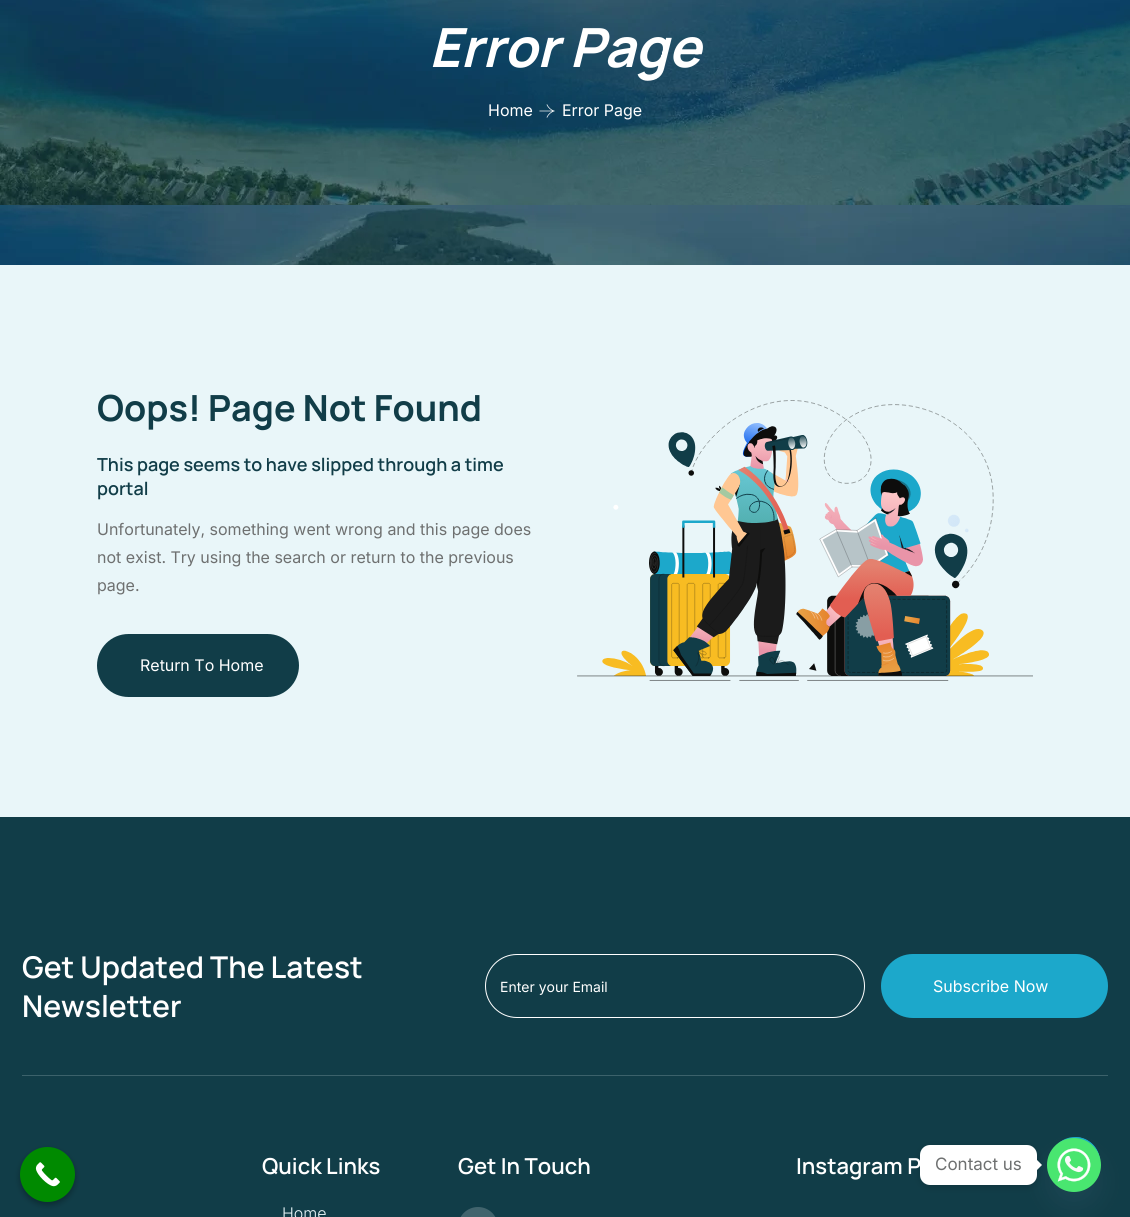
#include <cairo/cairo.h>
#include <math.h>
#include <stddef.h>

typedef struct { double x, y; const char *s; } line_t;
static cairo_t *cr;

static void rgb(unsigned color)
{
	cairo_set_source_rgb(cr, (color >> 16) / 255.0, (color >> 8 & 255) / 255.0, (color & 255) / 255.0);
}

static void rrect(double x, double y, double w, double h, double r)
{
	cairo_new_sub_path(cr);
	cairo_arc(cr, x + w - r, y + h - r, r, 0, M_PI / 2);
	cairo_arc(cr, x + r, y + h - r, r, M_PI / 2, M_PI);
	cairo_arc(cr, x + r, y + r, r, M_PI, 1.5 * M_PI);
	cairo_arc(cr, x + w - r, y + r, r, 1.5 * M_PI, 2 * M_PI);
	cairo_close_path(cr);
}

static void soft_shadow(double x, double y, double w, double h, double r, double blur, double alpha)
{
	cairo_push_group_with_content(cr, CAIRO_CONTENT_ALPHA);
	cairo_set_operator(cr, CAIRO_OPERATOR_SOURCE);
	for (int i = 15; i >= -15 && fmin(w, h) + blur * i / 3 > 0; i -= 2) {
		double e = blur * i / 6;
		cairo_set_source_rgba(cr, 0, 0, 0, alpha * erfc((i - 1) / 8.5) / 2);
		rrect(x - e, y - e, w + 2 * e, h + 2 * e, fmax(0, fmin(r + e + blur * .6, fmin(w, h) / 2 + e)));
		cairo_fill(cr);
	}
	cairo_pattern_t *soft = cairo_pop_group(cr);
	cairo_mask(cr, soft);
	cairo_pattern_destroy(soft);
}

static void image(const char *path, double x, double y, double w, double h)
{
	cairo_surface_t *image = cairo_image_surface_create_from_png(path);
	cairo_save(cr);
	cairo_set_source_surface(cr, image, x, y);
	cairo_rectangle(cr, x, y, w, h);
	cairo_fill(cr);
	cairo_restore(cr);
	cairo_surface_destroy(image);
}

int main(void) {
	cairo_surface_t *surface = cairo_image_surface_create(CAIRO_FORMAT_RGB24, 1130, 1217);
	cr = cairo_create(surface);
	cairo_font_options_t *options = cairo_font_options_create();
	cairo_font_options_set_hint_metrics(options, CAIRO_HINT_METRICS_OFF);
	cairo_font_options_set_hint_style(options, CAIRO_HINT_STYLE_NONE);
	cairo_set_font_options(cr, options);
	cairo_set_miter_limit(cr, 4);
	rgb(0xe9f6f9);
	cairo_paint(cr);
	image("img/1.png", 0, 0, 1130, 265);
	image("img/2.png", 539, 104, 16, 14);
	rgb(0x113d48);
	rrect(97, 634, 202, 63, 31.5);
	cairo_fill(cr);
	image("img/3.png", 577, 400, 456, 281);
	cairo_rectangle(cr, 0, 817, 1130, 400);
	cairo_fill(cr);
	rgb(0x3c626b);
	cairo_rectangle(cr, 22, 1075, 1086, 1);
	cairo_fill(cr);
	rrect(485.5, 954.5, 379, 63, 31.5);
	rgb(0xffffff);
	cairo_set_line_width(cr, 1);
	cairo_stroke(cr);
	rgb(0x1ca8cb);
	rrect(881, 954, 227, 64, 32);
	cairo_fill(cr);
	rgb(0x41646d);
	rrect(458, 1207, 40, 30, 20);
	cairo_fill(cr);
	cairo_save(cr);
	rrect(1050, 1137, 50, 50, 25);
	cairo_clip(cr);
	cairo_new_path(cr);
	cairo_move_to(cr, 1075, 1138);
	cairo_curve_to(cr, 1090.5, 1138, 1102, 1152.5, 1098.5, 1167.5);
	rgb(0x1ca8cb);
	cairo_set_line_width(cr, 9.8);
	cairo_stroke(cr);
	cairo_restore(cr);
	cairo_arc(cr, 1075, 1162, 24, 0, 2 * M_PI);
	rgb(0x1ca8cb);
	cairo_set_line_width(cr, 2);
	cairo_stroke(cr);
	rgb(0x000000);
	soft_shadow(20, 1150, 55, 55, 27.5, 3, 0.3);
	rgb(0x008a00);
	cairo_arc(cr, 47.5, 1174.5, 27.5, 0, 2 * M_PI);
	cairo_fill(cr);
	image("img/4.png", 35, 1162, 25, 25);
	rgb(0x49687e);
	soft_shadow(1047, 1154, 54, 54, 27, 12, 0.16);
	image("img/5.png", 1047, 1138, 54, 54);
	rgb(0x000000);
	soft_shadow(920, 1147, 117, 40, 10, 4, 0.15);
	rgb(0xffffff);
	rrect(920, 1145, 117, 40, 10);
	cairo_fill(cr);
	cairo_new_path(cr);
	cairo_move_to(cr, 1037, 1170);
	cairo_line_to(cr, 1037, 1160);
	cairo_line_to(cr, 1042, 1165);
	cairo_close_path(cr);
	cairo_fill(cr);
	cairo_select_font_face(cr, "Manrope", CAIRO_FONT_SLANT_ITALIC, CAIRO_FONT_WEIGHT_BOLD);
	cairo_set_font_size(cr, 54);
	cairo_move_to(cr, 429, 67);
	cairo_show_text(cr, "Error Page");
	cairo_select_font_face(cr, "Inter", CAIRO_FONT_SLANT_NORMAL, CAIRO_FONT_WEIGHT_NORMAL);
	cairo_set_font_size(cr, 16);
	cairo_move_to(cr, 488, 116);
	cairo_show_text(cr, "Home");
	cairo_move_to(cr, 562, 116);
	cairo_show_text(cr, "Error Page");
	cairo_select_font_face(cr, "Manrope", CAIRO_FONT_SLANT_NORMAL, CAIRO_FONT_WEIGHT_BOLD);
	cairo_set_font_size(cr, 36);
	rgb(0x113d48);
	cairo_move_to(cr, 97, 421);
	cairo_show_text(cr, "Oops! Page Not Found");
	cairo_select_font_face(cr, "Manrope SemiBold", CAIRO_FONT_SLANT_NORMAL, CAIRO_FONT_WEIGHT_NORMAL);
	cairo_set_font_size(cr, 18);
	cairo_move_to(cr, 97, 471);
	cairo_show_text(cr, "This page seems to have slipped through a time");
	cairo_move_to(cr, 97, 495);
	cairo_show_text(cr, "portal");
	cairo_select_font_face(cr, "Inter", CAIRO_FONT_SLANT_NORMAL, CAIRO_FONT_WEIGHT_NORMAL);
	cairo_set_font_size(cr, 16);
	rgb(0x6e7070);
	{
		static const line_t items[] = {
			{97, 535, "Unfortunately, something went wrong and this page does"},
			{97, 563, "not exist. Try using the search or return to the previous"},
			{97, 591, "page."},
		};
		for (size_t i = 0; i < sizeof items / sizeof *items; i++) {
			cairo_move_to(cr, items[i].x, items[i].y);
			cairo_show_text(cr, items[i].s);
		}
	}
	rgb(0xffffff);
	cairo_move_to(cr, 140, 671);
	cairo_show_text(cr, "Return To Home");
	cairo_select_font_face(cr, "Manrope SemiBold", CAIRO_FONT_SLANT_NORMAL, CAIRO_FONT_WEIGHT_NORMAL);
	cairo_set_font_size(cr, 30);
	cairo_move_to(cr, 22, 978);
	cairo_show_text(cr, "Get Updated The Latest");
	cairo_move_to(cr, 22, 1017);
	cairo_show_text(cr, "Newsletter");
	cairo_select_font_face(cr, "Inter", CAIRO_FONT_SLANT_NORMAL, CAIRO_FONT_WEIGHT_NORMAL);
	cairo_set_font_size(cr, 14);
	cairo_move_to(cr, 500, 992);
	cairo_show_text(cr, "Enter your Email");
	cairo_set_font_size(cr, 16);
	cairo_move_to(cr, 933, 992);
	cairo_show_text(cr, "Subscribe Now");
	cairo_select_font_face(cr, "Manrope SemiBold", CAIRO_FONT_SLANT_NORMAL, CAIRO_FONT_WEIGHT_NORMAL);
	cairo_set_font_size(cr, 22);
	cairo_move_to(cr, 262, 1174);
	cairo_show_text(cr, "Quick Links");
	cairo_select_font_face(cr, "Inter Light", CAIRO_FONT_SLANT_NORMAL, CAIRO_FONT_WEIGHT_NORMAL);
	cairo_set_font_size(cr, 16);
	rgb(0xe9f6f9);
	cairo_move_to(cr, 282, 1219);
	cairo_show_text(cr, "Home");
	cairo_select_font_face(cr, "Manrope SemiBold", CAIRO_FONT_SLANT_NORMAL, CAIRO_FONT_WEIGHT_NORMAL);
	cairo_set_font_size(cr, 22);
	rgb(0xffffff);
	cairo_move_to(cr, 458, 1174);
	cairo_show_text(cr, "Get In Touch");
	cairo_move_to(cr, 796, 1174);
	cairo_show_text(cr, "Instagram P");
	cairo_select_font_face(cr, "Inter", CAIRO_FONT_SLANT_NORMAL, CAIRO_FONT_WEIGHT_NORMAL);
	cairo_set_font_size(cr, 17);
	rgb(0x6e7070);
	cairo_move_to(cr, 935, 1170);
	cairo_show_text(cr, "Contact us");
	cairo_surface_write_to_png(surface, "page.png");
	cairo_font_options_destroy(options);
	cairo_destroy(cr);
	cairo_surface_destroy(surface);
	return 0;
}
